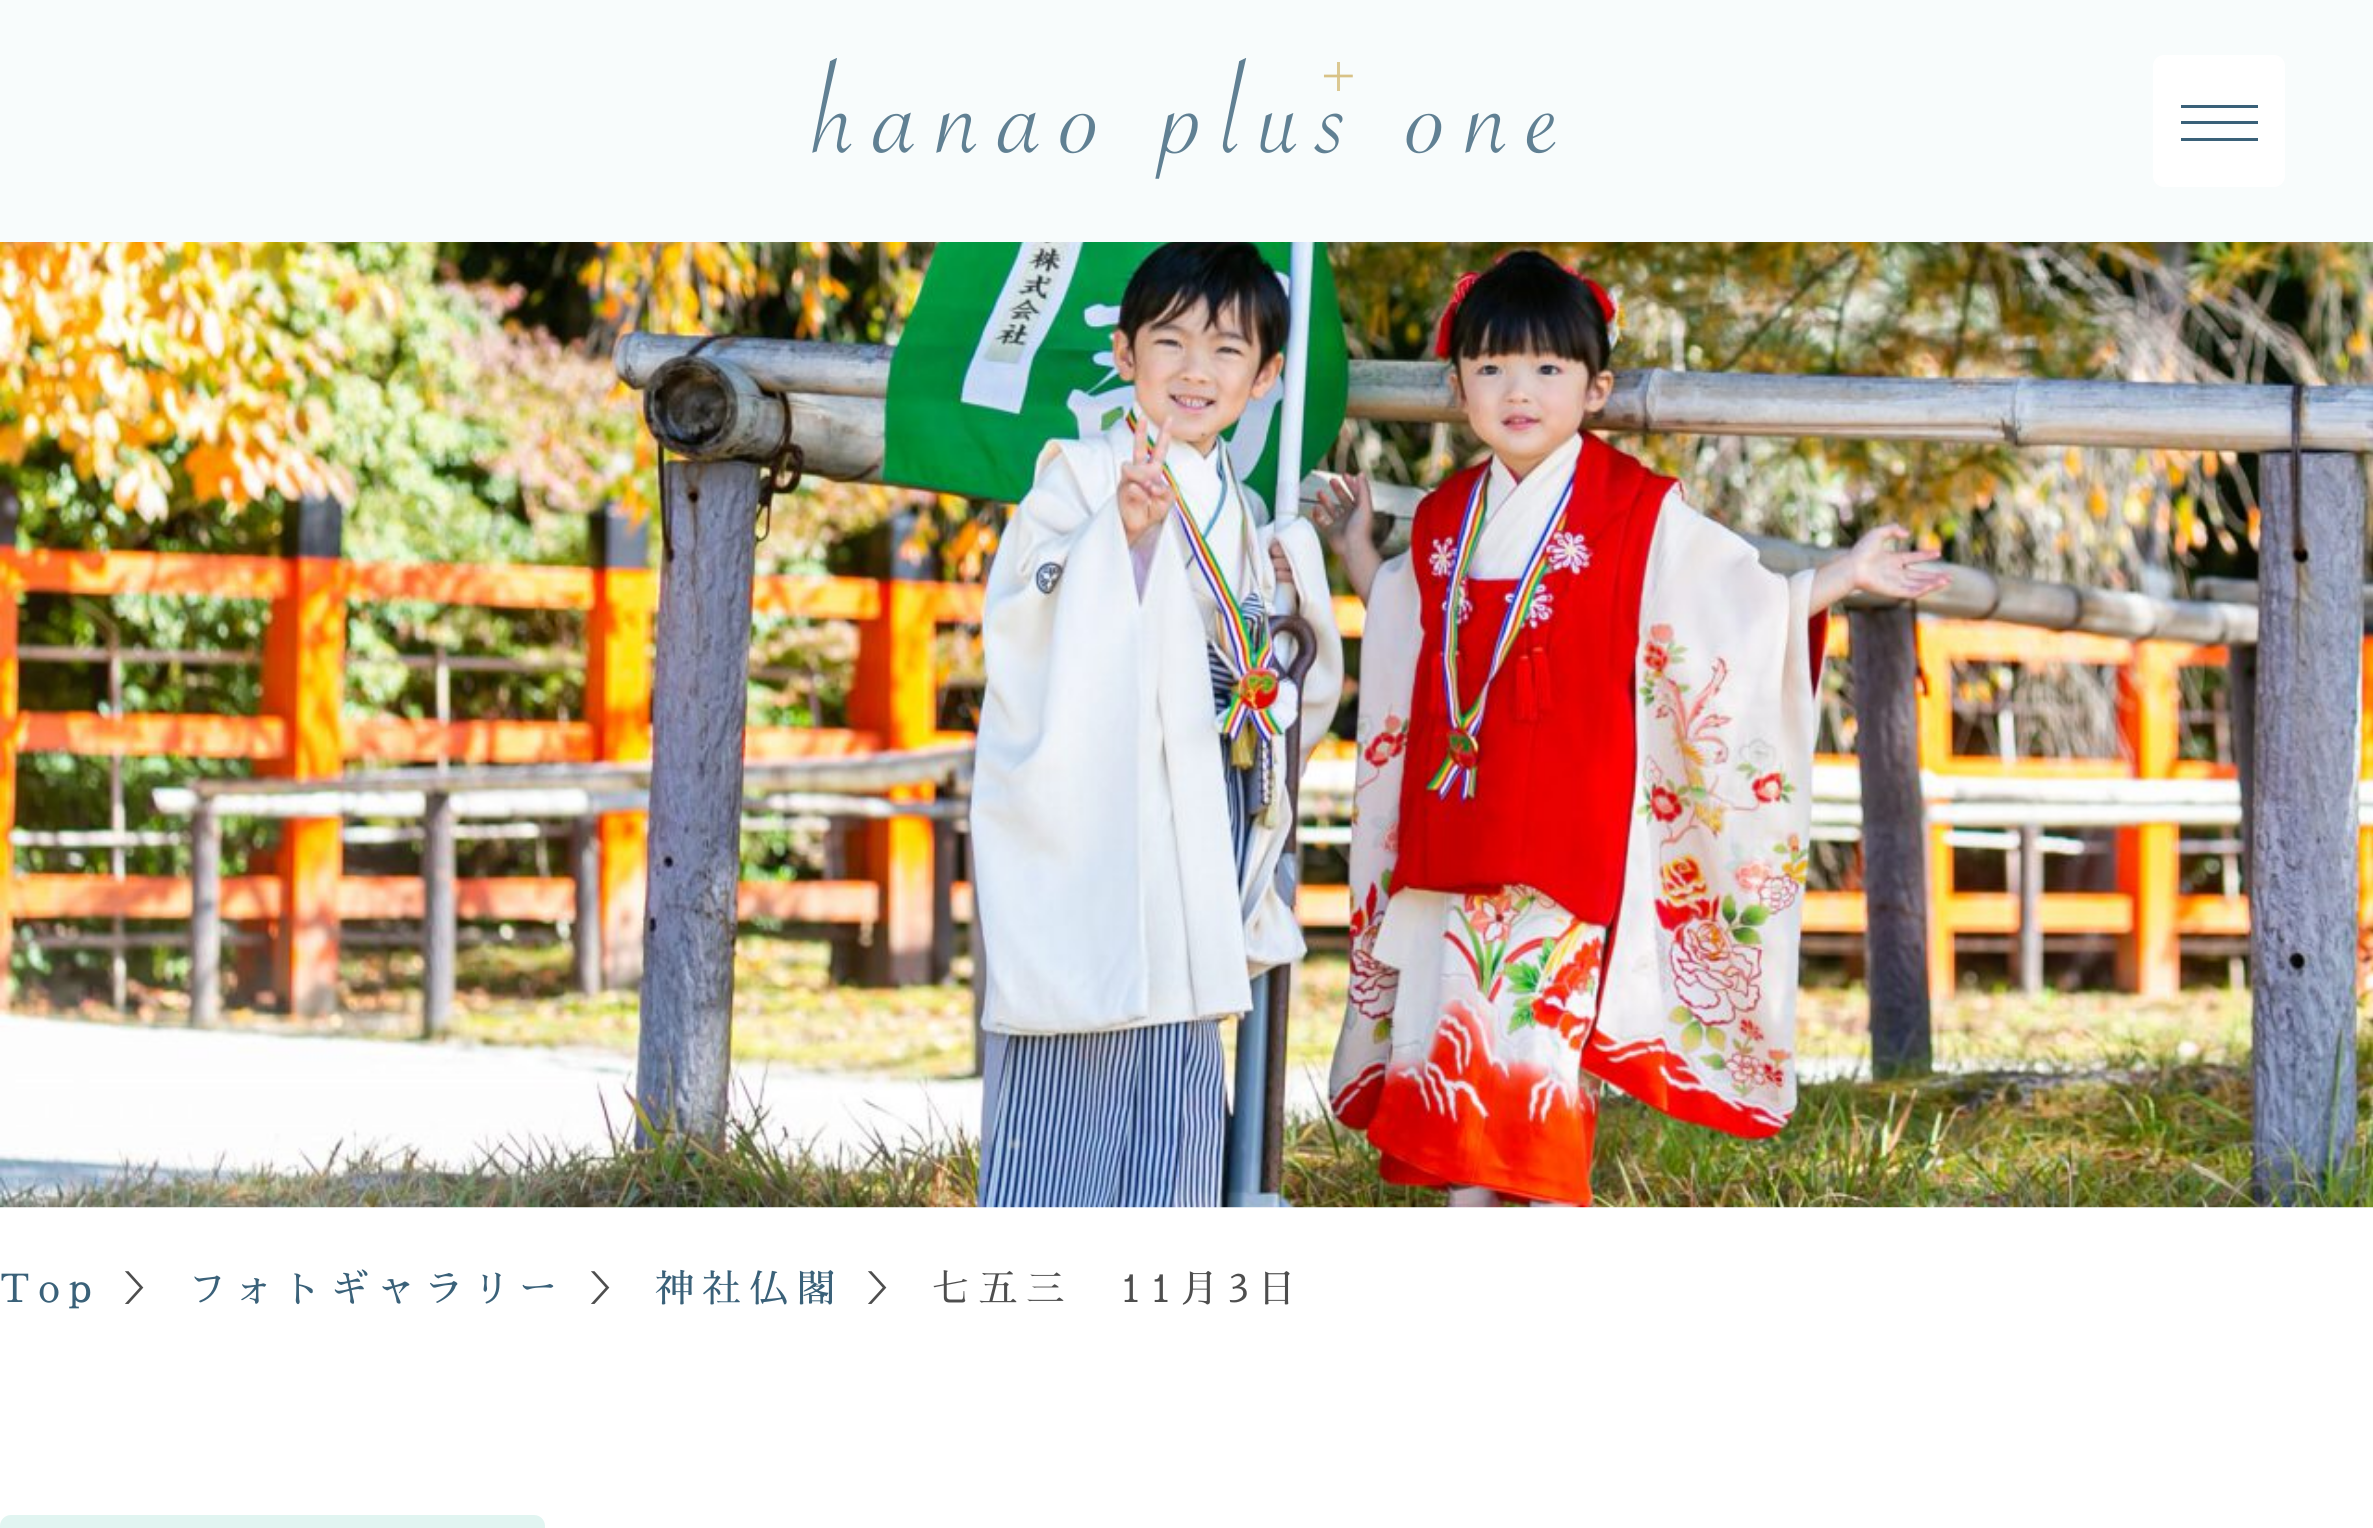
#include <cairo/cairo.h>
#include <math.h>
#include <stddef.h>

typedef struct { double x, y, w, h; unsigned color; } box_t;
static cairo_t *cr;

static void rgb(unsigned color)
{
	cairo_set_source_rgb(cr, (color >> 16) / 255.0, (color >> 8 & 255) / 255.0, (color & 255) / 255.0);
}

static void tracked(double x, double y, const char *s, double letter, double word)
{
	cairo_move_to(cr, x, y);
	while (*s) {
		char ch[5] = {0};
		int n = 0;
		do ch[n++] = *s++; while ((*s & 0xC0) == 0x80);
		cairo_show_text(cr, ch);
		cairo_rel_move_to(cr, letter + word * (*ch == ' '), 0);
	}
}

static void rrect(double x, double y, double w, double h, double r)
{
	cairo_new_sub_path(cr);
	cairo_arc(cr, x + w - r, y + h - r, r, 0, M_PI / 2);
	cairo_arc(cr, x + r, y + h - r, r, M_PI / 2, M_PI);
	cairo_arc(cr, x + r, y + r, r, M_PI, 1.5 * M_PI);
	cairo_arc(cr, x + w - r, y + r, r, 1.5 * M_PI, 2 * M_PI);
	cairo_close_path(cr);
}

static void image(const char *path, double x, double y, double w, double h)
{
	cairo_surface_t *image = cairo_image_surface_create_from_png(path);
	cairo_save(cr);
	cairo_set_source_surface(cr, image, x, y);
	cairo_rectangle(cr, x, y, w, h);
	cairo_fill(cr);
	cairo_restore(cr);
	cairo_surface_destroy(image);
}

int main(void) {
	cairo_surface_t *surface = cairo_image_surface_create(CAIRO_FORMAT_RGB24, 2373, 1528);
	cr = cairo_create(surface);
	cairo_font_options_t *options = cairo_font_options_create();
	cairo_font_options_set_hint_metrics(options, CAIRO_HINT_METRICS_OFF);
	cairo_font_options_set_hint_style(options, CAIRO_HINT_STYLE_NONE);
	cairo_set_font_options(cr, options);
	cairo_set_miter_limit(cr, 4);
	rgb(0xffffff);
	cairo_paint(cr);
	rgb(0xf8fcfc);
	cairo_rectangle(cr, 0, 0, 2373, 242);
	cairo_fill(cr);
	image("img/1.png", 812, 58, 744, 121);
	rgb(0xffffff);
	rrect(2153, 55, 132, 132, 11);
	cairo_fill(cr);
	{
		static const box_t items[] = {
			{2181, 105, 77, 3, 0x3a6179},
			{2181, 121, 77, 3, 0x3a6179},
			{2181, 138, 77, 3, 0x3a6179},
		};
		for (size_t i = 0; i < sizeof items / sizeof *items; i++) {
			rgb(items[i].color);
			cairo_rectangle(cr, items[i].x, items[i].y, items[i].w, items[i].h);
			cairo_fill(cr);
		}
	}
	image("img/2.png", 0, 242, 2373, 966);
	rgb(0xe1f5f1);
	rrect(0, 1515, 545, 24, 11);
	cairo_fill(cr);
	cairo_select_font_face(cr, "Sawarabi Mincho", CAIRO_FONT_SLANT_NORMAL, CAIRO_FONT_WEIGHT_NORMAL);
	cairo_set_font_size(cr, 38.5);
	rgb(0x3a6179);
	tracked(0, 1302, "Top", 8.75, 0);
	rgb(0x4e4e4e);
	tracked(121, 1302, "＞", 8.75, 0);
	rgb(0x3a6179);
	tracked(188, 1302, "フォトギャラリー", 8.75, 0);
	rgb(0x4e4e4e);
	tracked(587, 1302, "＞", 8.75, 0);
	rgb(0x3a6179);
	tracked(655, 1302, "神社仏閣", 8.75, 0);
	rgb(0x4e4e4e);
	tracked(864, 1302, "＞ 七五三　11月3日", 8.75, 0);
	cairo_surface_write_to_png(surface, "page.png");
	cairo_font_options_destroy(options);
	cairo_destroy(cr);
	cairo_surface_destroy(surface);
	return 0;
}
